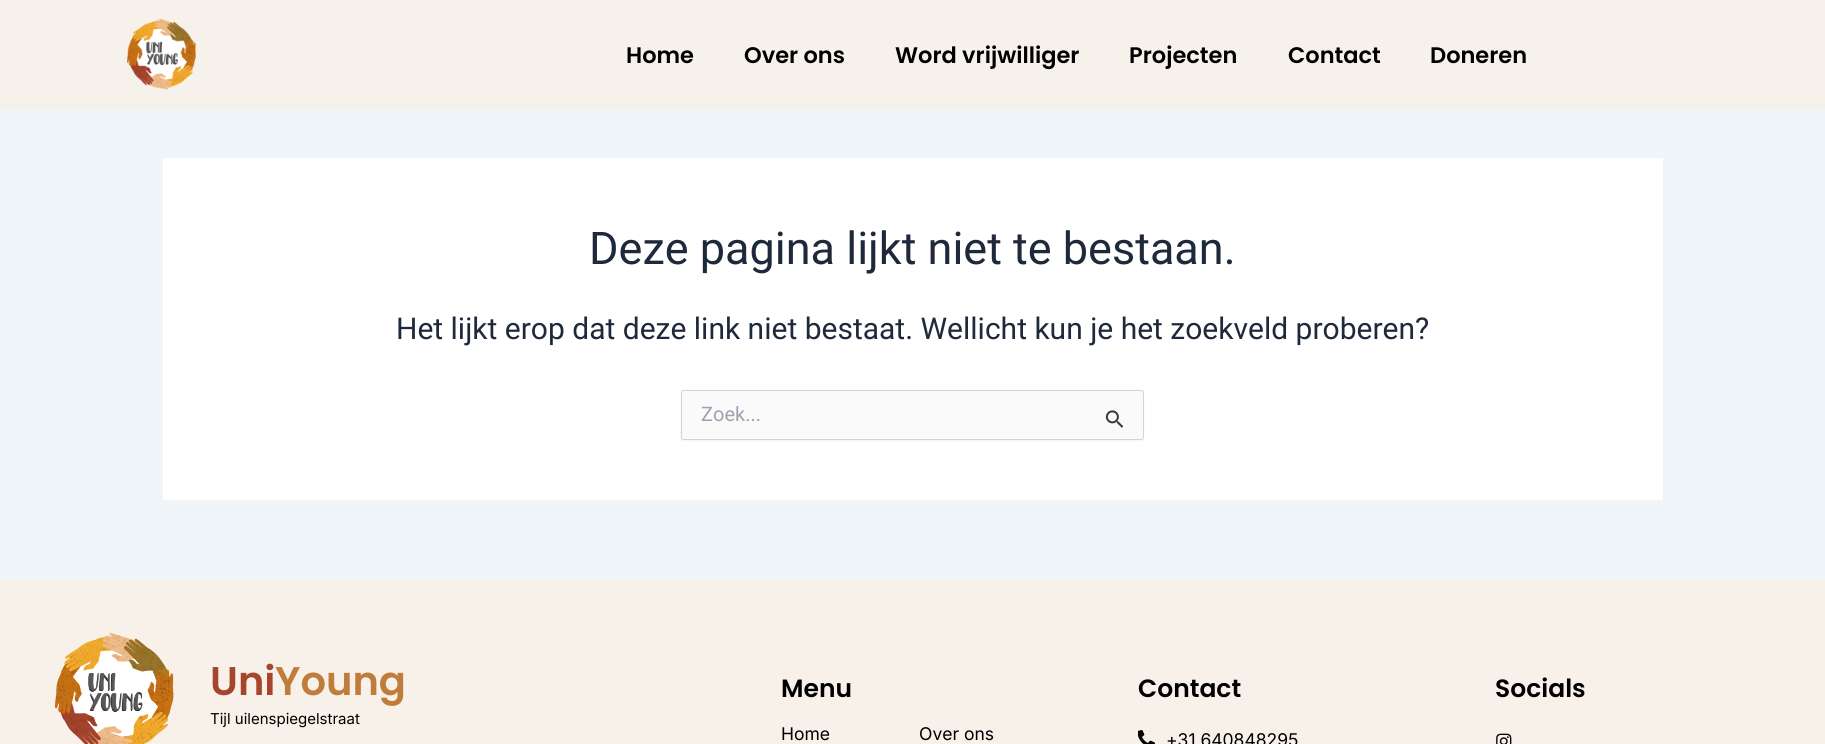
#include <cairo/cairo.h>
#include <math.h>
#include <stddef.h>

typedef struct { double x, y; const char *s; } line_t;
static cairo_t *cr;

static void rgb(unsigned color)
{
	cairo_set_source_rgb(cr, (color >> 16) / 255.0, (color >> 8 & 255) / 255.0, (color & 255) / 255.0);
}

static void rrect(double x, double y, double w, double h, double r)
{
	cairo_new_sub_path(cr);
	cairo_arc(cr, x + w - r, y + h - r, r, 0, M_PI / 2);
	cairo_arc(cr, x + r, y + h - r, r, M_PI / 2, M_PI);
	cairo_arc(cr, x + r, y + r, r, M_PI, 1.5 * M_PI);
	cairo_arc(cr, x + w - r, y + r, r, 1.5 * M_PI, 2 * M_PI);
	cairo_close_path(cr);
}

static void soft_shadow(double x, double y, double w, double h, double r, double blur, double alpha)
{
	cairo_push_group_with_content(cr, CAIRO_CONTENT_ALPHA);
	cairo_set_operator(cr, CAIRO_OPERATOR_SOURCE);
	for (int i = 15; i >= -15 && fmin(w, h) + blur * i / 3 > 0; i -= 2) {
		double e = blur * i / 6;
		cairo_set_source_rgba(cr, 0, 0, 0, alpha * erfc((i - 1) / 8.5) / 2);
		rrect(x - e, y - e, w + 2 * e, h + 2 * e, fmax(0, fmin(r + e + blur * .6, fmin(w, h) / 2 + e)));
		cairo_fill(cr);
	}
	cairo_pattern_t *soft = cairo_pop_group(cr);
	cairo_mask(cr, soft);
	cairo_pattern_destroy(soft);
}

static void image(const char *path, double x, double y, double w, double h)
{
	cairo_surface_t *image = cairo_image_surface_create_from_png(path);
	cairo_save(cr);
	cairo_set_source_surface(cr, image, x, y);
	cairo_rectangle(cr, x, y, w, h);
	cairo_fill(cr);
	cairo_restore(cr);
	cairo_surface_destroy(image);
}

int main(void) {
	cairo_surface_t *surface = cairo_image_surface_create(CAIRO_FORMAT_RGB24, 1825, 744);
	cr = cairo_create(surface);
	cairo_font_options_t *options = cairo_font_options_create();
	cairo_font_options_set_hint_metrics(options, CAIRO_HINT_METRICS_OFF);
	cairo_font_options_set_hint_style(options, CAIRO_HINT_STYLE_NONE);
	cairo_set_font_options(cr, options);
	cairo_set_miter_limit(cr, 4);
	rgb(0xf0f5fa);
	cairo_paint(cr);
	rgb(0xf7f1eb);
	cairo_rectangle(cr, 0, 0, 1825, 110);
	cairo_fill(cr);
	image("img/1.png", 127, 18, 69, 72);
	rgb(0xffffff);
	cairo_rectangle(cr, 163, 158, 1500, 342);
	cairo_fill(cr);
	rgb(0x000000);
	soft_shadow(681, 391, 463, 50, 2.5, 1, 0.05);
	rgb(0xfafafa);
	rrect(681.5, 390.5, 462, 49, 2);
	cairo_fill_preserve(cr);
	rgb(0xd1d5db);
	cairo_set_line_width(cr, 1);
	cairo_stroke(cr);
	image("img/2.png", 1105, 410, 18, 18);
	rgb(0xf7f1ea);
	cairo_rectangle(cr, 0, 580, 1825, 164);
	cairo_fill(cr);
	image("img/3.png", 54, 632, 120, 112);
	image("img/4.png", 1138, 730, 17, 14);
	image("img/5.png", 1496, 733, 16, 11);
	cairo_select_font_face(cr, "Poppins SemiBold", CAIRO_FONT_SLANT_NORMAL, CAIRO_FONT_WEIGHT_NORMAL);
	cairo_set_font_size(cr, 22.5);
	rgb(0x000000);
	{
		static const line_t items[] = {
			{626, 63, "Home"},
			{744, 63, "Over ons"},
			{895, 63, "Word vrijwilliger"},
			{1129, 63, "Projecten"},
			{1288, 63, "Contact"},
			{1430, 63, "Doneren"},
		};
		for (size_t i = 0; i < sizeof items / sizeof *items; i++) {
			cairo_move_to(cr, items[i].x, items[i].y);
			cairo_show_text(cr, items[i].s);
		}
	}
	cairo_select_font_face(cr, "Roboto", CAIRO_FONT_SLANT_NORMAL, CAIRO_FONT_WEIGHT_NORMAL);
	cairo_set_font_size(cr, 45);
	rgb(0x1e293b);
	cairo_move_to(cr, 589, 264);
	cairo_show_text(cr, "Deze pagina lijkt niet te bestaan.");
	cairo_set_font_size(cr, 30);
	cairo_move_to(cr, 396, 339);
	cairo_show_text(cr, "Het lijkt erop dat deze link niet bestaat. Wellicht kun je het zoekveld proberen?");
	cairo_set_font_size(cr, 20);
	rgb(0x9ca3af);
	cairo_move_to(cr, 701, 421);
	cairo_show_text(cr, "Zoek...");
	cairo_select_font_face(cr, "Poppins SemiBold", CAIRO_FONT_SLANT_NORMAL, CAIRO_FONT_WEIGHT_NORMAL);
	cairo_set_font_size(cr, 40);
	rgb(0xa5452d);
	cairo_move_to(cr, 210, 695);
	cairo_show_text(cr, "Uni");
	rgb(0xc07c3a);
	cairo_move_to(cr, 275, 695);
	cairo_show_text(cr, "Young");
	cairo_select_font_face(cr, "Inter", CAIRO_FONT_SLANT_NORMAL, CAIRO_FONT_WEIGHT_NORMAL);
	cairo_set_font_size(cr, 15);
	rgb(0x000000);
	cairo_move_to(cr, 210, 724);
	cairo_show_text(cr, "Tijl uilenspiegelstraat");
	cairo_select_font_face(cr, "Poppins SemiBold", CAIRO_FONT_SLANT_NORMAL, CAIRO_FONT_WEIGHT_NORMAL);
	cairo_set_font_size(cr, 25);
	cairo_move_to(cr, 781, 697);
	cairo_show_text(cr, "Menu");
	cairo_select_font_face(cr, "Inter", CAIRO_FONT_SLANT_NORMAL, CAIRO_FONT_WEIGHT_NORMAL);
	cairo_set_font_size(cr, 17.5);
	cairo_move_to(cr, 781, 740);
	cairo_show_text(cr, "Home");
	cairo_move_to(cr, 919, 740);
	cairo_show_text(cr, "Over ons");
	cairo_select_font_face(cr, "Poppins SemiBold", CAIRO_FONT_SLANT_NORMAL, CAIRO_FONT_WEIGHT_NORMAL);
	cairo_set_font_size(cr, 25);
	cairo_move_to(cr, 1138, 697);
	cairo_show_text(cr, "Contact");
	cairo_select_font_face(cr, "Inter", CAIRO_FONT_SLANT_NORMAL, CAIRO_FONT_WEIGHT_NORMAL);
	cairo_set_font_size(cr, 17.5);
	cairo_move_to(cr, 1166, 746);
	cairo_show_text(cr, "+31 640848295");
	cairo_select_font_face(cr, "Poppins SemiBold", CAIRO_FONT_SLANT_NORMAL, CAIRO_FONT_WEIGHT_NORMAL);
	cairo_set_font_size(cr, 25);
	cairo_move_to(cr, 1495, 697);
	cairo_show_text(cr, "Socials");
	cairo_surface_write_to_png(surface, "page.png");
	cairo_font_options_destroy(options);
	cairo_destroy(cr);
	cairo_surface_destroy(surface);
	return 0;
}
